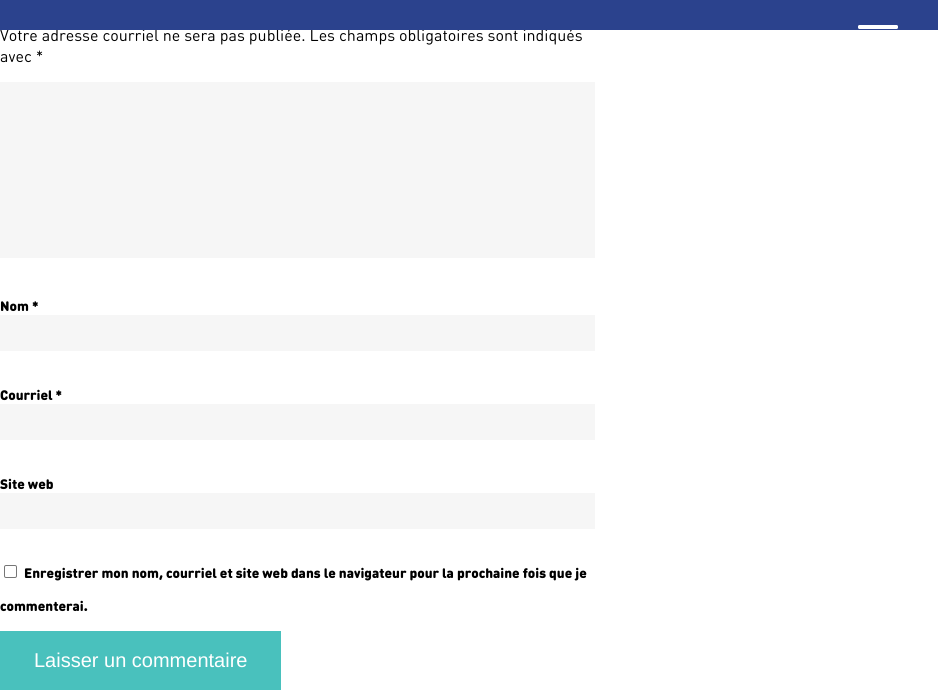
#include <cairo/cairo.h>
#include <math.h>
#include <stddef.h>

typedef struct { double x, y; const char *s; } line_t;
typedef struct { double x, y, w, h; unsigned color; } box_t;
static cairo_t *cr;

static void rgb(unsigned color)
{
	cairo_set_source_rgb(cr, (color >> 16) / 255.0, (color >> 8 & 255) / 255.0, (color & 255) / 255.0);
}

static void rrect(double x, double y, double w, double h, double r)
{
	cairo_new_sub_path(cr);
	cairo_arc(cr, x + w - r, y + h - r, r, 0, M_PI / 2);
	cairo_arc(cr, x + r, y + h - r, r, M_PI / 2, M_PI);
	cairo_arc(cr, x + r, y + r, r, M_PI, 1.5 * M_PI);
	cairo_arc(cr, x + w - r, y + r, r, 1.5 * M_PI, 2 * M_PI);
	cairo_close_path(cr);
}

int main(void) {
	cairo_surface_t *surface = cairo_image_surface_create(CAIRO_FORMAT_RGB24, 938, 700);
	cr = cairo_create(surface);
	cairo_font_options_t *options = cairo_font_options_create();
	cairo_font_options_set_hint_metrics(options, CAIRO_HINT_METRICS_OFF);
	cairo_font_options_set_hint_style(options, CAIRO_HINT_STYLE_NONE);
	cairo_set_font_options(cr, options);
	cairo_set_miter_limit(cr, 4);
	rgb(0xffffff);
	cairo_paint(cr);
	{
		static const box_t items[] = {
			{0, 82, 595, 176, 0xf6f6f6},
			{0, 315, 595, 36, 0xf6f6f6},
			{0, 404, 595, 36, 0xf6f6f6},
			{0, 493, 595, 36, 0xf6f6f6},
		};
		for (size_t i = 0; i < sizeof items / sizeof *items; i++) {
			rgb(items[i].color);
			cairo_rectangle(cr, items[i].x, items[i].y, items[i].w, items[i].h);
			cairo_fill(cr);
		}
	}
	rrect(4.5, 565.5, 12, 12, 1.5);
	rgb(0x767676);
	cairo_set_line_width(cr, 1);
	cairo_stroke(cr);
	rgb(0x49c1bd);
	cairo_rectangle(cr, 0, 631, 281, 59);
	cairo_fill(cr);
	cairo_select_font_face(cr, "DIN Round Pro", CAIRO_FONT_SLANT_NORMAL, CAIRO_FONT_WEIGHT_NORMAL);
	cairo_set_font_size(cr, 16);
	rgb(0x000000);
	cairo_move_to(cr, 0, 41);
	cairo_show_text(cr, "Votre adresse courriel ne sera pas publiée. Les champs obligatoires sont indiqués");
	rgb(0x2b428d);
	cairo_rectangle(cr, 0, 0, 938, 30);
	cairo_fill(cr);
	rgb(0xffffff);
	rrect(858, 25, 40, 4, 1.5);
	cairo_fill(cr);
	rgb(0x000000);
	cairo_move_to(cr, 0, 62);
	cairo_show_text(cr, "avec *");
	cairo_select_font_face(cr, "DIN Round Pro Black", CAIRO_FONT_SLANT_NORMAL, CAIRO_FONT_WEIGHT_NORMAL);
	cairo_set_font_size(cr, 13.6);
	{
		static const line_t items[] = {
			{0, 311, "Nom *"},
			{0, 400, "Courriel *"},
			{0, 489, "Site web"},
			{24, 578, "Enregistrer mon nom, courriel et site web dans le navigateur pour la prochaine fois que je"},
			{0, 611, "commenterai."},
		};
		for (size_t i = 0; i < sizeof items / sizeof *items; i++) {
			cairo_move_to(cr, items[i].x, items[i].y);
			cairo_show_text(cr, items[i].s);
		}
	}
	cairo_select_font_face(cr, "Liberation Sans", CAIRO_FONT_SLANT_NORMAL, CAIRO_FONT_WEIGHT_NORMAL);
	cairo_set_font_size(cr, 20);
	rgb(0xffffff);
	cairo_move_to(cr, 34, 667);
	cairo_show_text(cr, "Laisser un commentaire");
	cairo_surface_write_to_png(surface, "page.png");
	cairo_font_options_destroy(options);
	cairo_destroy(cr);
	cairo_surface_destroy(surface);
	return 0;
}
